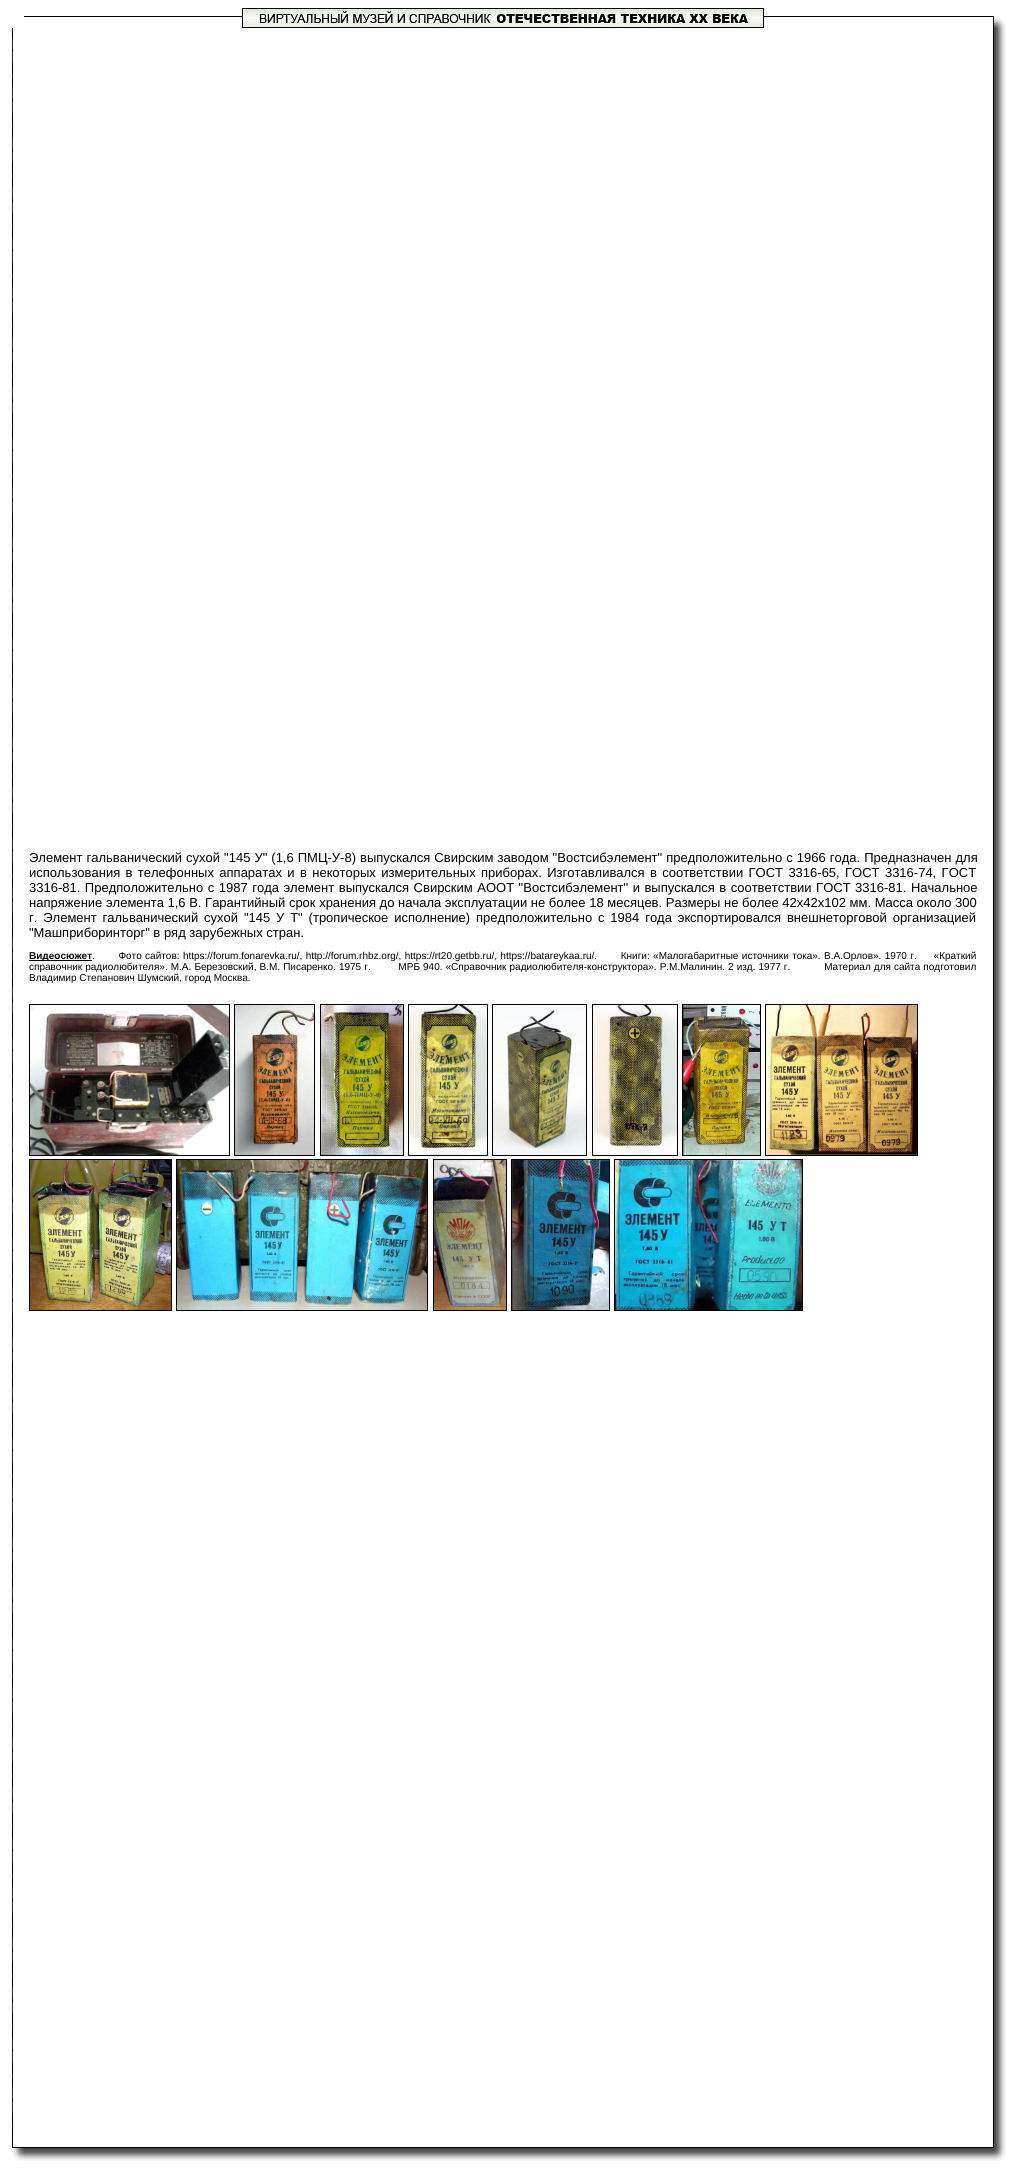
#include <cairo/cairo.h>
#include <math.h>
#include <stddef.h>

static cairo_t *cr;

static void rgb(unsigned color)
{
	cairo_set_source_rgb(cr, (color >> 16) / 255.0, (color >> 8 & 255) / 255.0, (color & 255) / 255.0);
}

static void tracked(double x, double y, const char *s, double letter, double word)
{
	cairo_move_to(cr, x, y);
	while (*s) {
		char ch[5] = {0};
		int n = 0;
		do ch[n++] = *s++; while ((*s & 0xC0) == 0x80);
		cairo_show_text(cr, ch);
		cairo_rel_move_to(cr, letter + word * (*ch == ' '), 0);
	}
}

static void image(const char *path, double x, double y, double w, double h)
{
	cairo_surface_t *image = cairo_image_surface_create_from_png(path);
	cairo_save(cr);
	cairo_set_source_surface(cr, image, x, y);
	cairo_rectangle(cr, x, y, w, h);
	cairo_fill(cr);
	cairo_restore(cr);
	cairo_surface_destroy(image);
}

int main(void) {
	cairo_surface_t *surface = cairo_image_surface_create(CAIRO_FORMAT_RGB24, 1015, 2170);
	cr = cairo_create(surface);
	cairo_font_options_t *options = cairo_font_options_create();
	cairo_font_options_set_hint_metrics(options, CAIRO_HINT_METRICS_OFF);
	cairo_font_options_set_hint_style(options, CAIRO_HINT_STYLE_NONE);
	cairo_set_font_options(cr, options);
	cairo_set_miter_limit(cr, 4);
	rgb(0xffffff);
	cairo_paint(cr);
	rgb(0x020202);
	cairo_rectangle(cr, 24, 16, 958, 1);
	cairo_fill(cr);
	cairo_rectangle(cr, 242.5, 8.5, 521, 19);
	rgb(0x000000);
	cairo_set_line_width(cr, 1);
	cairo_stroke(cr);
	image("img/1.png", 243, 9, 520, 18);
	image("img/2.png", 982, 16, 24, 12);
	image("img/3.png", 12, 28, 1, 2108);
	cairo_rectangle(cr, 29, 960, 63, 1);
	cairo_fill(cr);
	cairo_rectangle(cr, 29.5, 1004.5, 200, 151);
	cairo_stroke(cr);
	cairo_rectangle(cr, 234.5, 1004.5, 80, 151);
	cairo_stroke(cr);
	cairo_rectangle(cr, 320.5, 1004.5, 83, 151);
	cairo_stroke(cr);
	cairo_rectangle(cr, 408.5, 1004.5, 79, 151);
	cairo_stroke(cr);
	cairo_rectangle(cr, 492.5, 1004.5, 94, 151);
	cairo_stroke(cr);
	cairo_rectangle(cr, 592.5, 1004.5, 85, 151);
	cairo_stroke(cr);
	cairo_rectangle(cr, 682.5, 1004.5, 78, 151);
	cairo_stroke(cr);
	cairo_rectangle(cr, 765.5, 1004.5, 152, 151);
	cairo_stroke(cr);
	image("img/4.png", 30, 1005, 199, 150);
	image("img/5.png", 235, 1005, 79, 150);
	image("img/6.png", 321, 1005, 82, 150);
	image("img/7.png", 409, 1005, 78, 150);
	image("img/8.png", 493, 1005, 93, 150);
	image("img/9.png", 593, 1005, 84, 150);
	image("img/10.png", 683, 1005, 77, 150);
	image("img/11.png", 766, 1005, 151, 150);
	cairo_rectangle(cr, 29.5, 1159.5, 142, 151);
	cairo_stroke(cr);
	cairo_rectangle(cr, 176.5, 1159.5, 251, 151);
	cairo_stroke(cr);
	cairo_rectangle(cr, 433.5, 1159.5, 73, 151);
	cairo_stroke(cr);
	cairo_rectangle(cr, 511.5, 1159.5, 98, 151);
	cairo_stroke(cr);
	cairo_rectangle(cr, 614.5, 1159.5, 188, 151);
	cairo_stroke(cr);
	image("img/12.png", 30, 1160, 141, 150);
	image("img/13.png", 177, 1160, 250, 150);
	image("img/14.png", 434, 1160, 72, 150);
	image("img/15.png", 512, 1160, 97, 150);
	image("img/16.png", 615, 1160, 187, 150);
	image("img/17.png", 993, 28, 13, 2108);
	image("img/18.png", 12, 2136, 12, 25);
	image("img/19.png", 24, 2147, 958, 14);
	image("img/20.png", 982, 2136, 24, 25);
	cairo_select_font_face(cr, "Liberation Sans", CAIRO_FONT_SLANT_NORMAL, CAIRO_FONT_WEIGHT_NORMAL);
	cairo_set_font_size(cr, 13);
	tracked(29, 862, "Элемент гальванический сухой \"145 У\" (1,6 ПМЦ-У-8) выпускался Свирским заводом \"Востсибэлемент\" предположительно с 1966 года. Предназначен для", 0, 0.4);
	tracked(29, 877, "использования в телефонных аппаратах и в некоторых измерительных приборах. Изготавливался в соответствии ГОСТ 3316-65, ГОСТ 3316-74, ГОСТ", 0, 1.75);
	tracked(29, 892, "3316-81. Предположительно с 1987 года элемент выпускался Свирским АООТ \"Востсибэлемент\" и выпускался в соответствии ГОСТ 3316-81. Начальное", 0, 0.9);
	cairo_move_to(cr, 29, 907);
	cairo_show_text(cr, "напряжение элемента 1,6 В. Гарантийный срок хранения до начала эксплуатации не более 18 месяцев. Размеры не более 42х42х102 мм. Масса около 300");
	tracked(29, 922, "г. Элемент гальванический сухой \"145 У Т\" (тропическое исполнение) предположительно с 1984 года экспортировался внешнеторговой организацией", 0, 2.25);
	cairo_move_to(cr, 29, 937);
	cairo_show_text(cr, "\"Машприборинторг\" в ряд зарубежных стран.");
	cairo_select_font_face(cr, "Liberation Sans", CAIRO_FONT_SLANT_NORMAL, CAIRO_FONT_WEIGHT_BOLD);
	cairo_set_font_size(cr, 10);
	cairo_move_to(cr, 29, 959);
	cairo_show_text(cr, "Видеосюжет");
	cairo_select_font_face(cr, "Liberation Sans", CAIRO_FONT_SLANT_NORMAL, CAIRO_FONT_WEIGHT_NORMAL);
	tracked(92, 959, ".       Фото сайтов: https://forum.fonarevka.ru/, http://forum.rhbz.org/, https://rt20.getbb.ru/, https://batareykaa.ru/.       Книги: «Малогабаритные источники тока». В.А.Орлов». 1970 г.     «Краткий", 0, 0.6);
	tracked(29, 970, "справочник радиолюбителя». М.А. Березовский, В.М. Писаренко. 1975 г.         МРБ 940. «Справочник радиолюбителя-конструктора». Р.М.Малинин. 2 изд. 1977 г.           Материал для сайта подготовил", 0, 0.3);
	cairo_move_to(cr, 29, 981);
	cairo_show_text(cr, "Владимир Степанович Шумский, город Москва.");
	rgb(0x333333);
	cairo_move_to(cr, 993, 1086);
	cairo_show_text(cr, "i");
	cairo_surface_write_to_png(surface, "page.png");
	cairo_font_options_destroy(options);
	cairo_destroy(cr);
	cairo_surface_destroy(surface);
	return 0;
}
